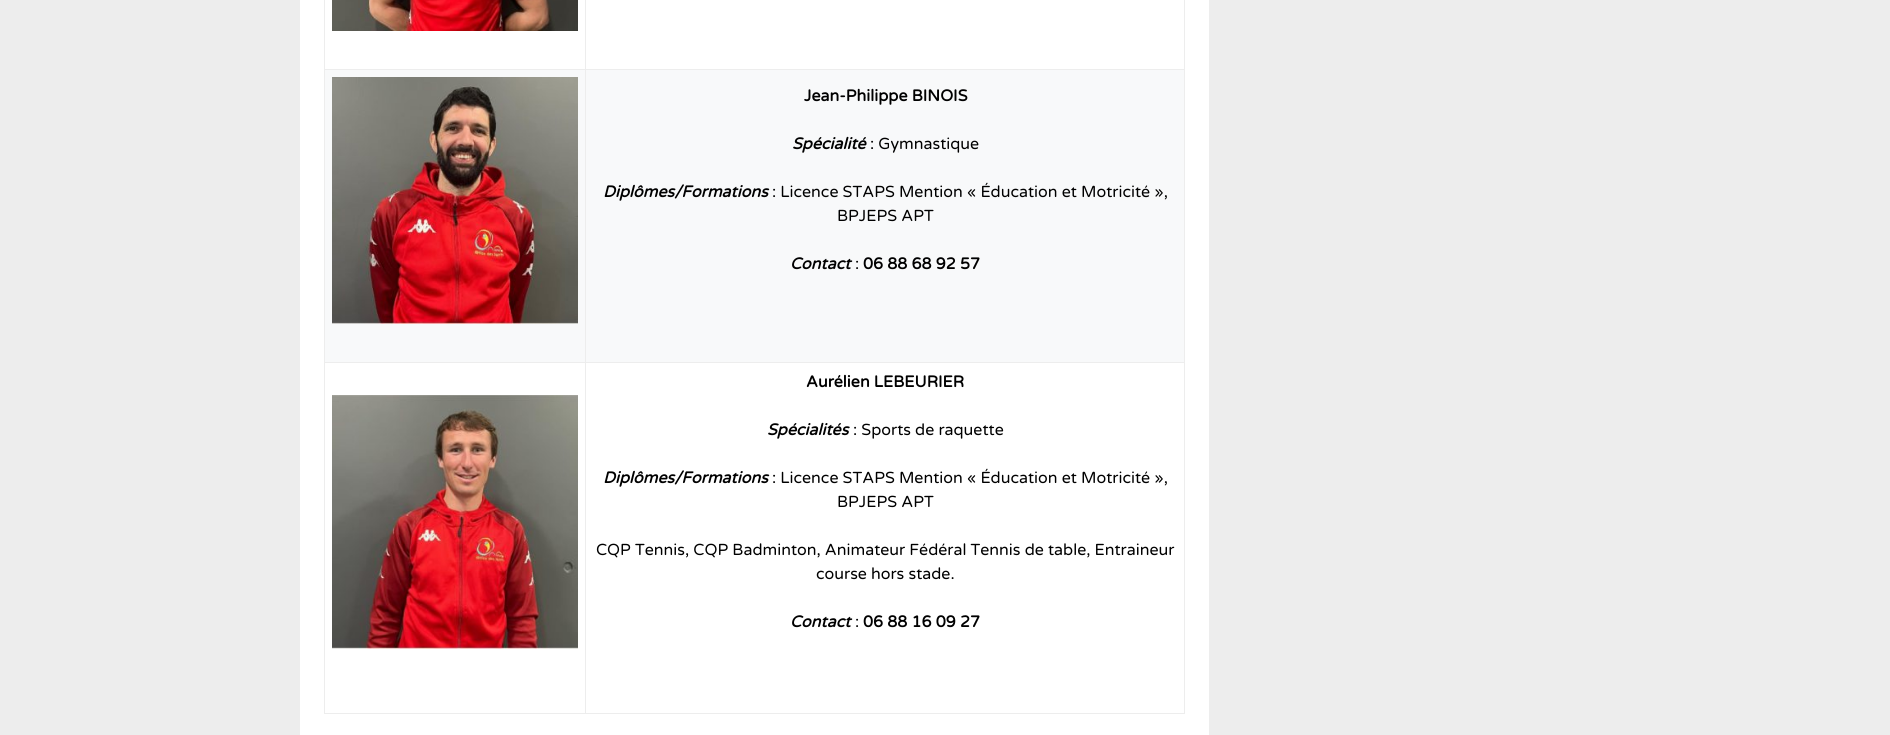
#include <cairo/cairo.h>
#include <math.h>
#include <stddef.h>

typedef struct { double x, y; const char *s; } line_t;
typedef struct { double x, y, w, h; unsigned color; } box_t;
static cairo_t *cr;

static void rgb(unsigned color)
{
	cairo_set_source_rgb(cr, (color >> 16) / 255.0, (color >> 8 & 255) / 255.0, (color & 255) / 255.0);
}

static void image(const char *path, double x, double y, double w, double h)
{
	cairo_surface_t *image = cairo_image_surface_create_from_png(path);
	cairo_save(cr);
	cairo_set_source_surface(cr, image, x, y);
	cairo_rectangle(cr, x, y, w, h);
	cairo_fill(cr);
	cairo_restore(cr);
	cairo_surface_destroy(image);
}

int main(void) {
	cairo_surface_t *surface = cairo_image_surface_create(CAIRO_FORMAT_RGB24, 1890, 735);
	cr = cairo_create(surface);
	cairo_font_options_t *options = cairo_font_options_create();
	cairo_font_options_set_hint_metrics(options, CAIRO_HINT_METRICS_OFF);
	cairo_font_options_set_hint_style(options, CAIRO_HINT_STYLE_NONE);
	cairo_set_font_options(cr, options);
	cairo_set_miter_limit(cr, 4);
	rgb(0xededed);
	cairo_paint(cr);
	{
		static const box_t items[] = {
			{300, 0, 909, 735, 0xffffff},
			{1184, 0, 1, 714, 0xededed},
			{324, 713, 861, 1, 0xededed},
			{324, 0, 1, 714, 0xededed},
			{324, 69, 861, 1, 0xededed},
		};
		for (size_t i = 0; i < sizeof items / sizeof *items; i++) {
			rgb(items[i].color);
			cairo_rectangle(cr, items[i].x, items[i].y, items[i].w, items[i].h);
			cairo_fill(cr);
		}
	}
	image("img/1.png", 332, 0, 246, 31);
	rgb(0xf8f9fa);
	cairo_rectangle(cr, 325, 70, 859, 292);
	cairo_fill(cr);
	rgb(0xededed);
	cairo_rectangle(cr, 324, 362, 861, 1);
	cairo_fill(cr);
	image("img/2.png", 332, 77, 246, 247);
	cairo_rectangle(cr, 585, 0, 1, 714);
	cairo_fill(cr);
	image("img/3.png", 332, 395, 246, 254);
	cairo_select_font_face(cr, "Varela Round", CAIRO_FONT_SLANT_NORMAL, CAIRO_FONT_WEIGHT_BOLD);
	cairo_set_font_size(cr, 16);
	rgb(0x000000);
	cairo_move_to(cr, 804, 101);
	cairo_show_text(cr, "Jean-Philippe BINOIS");
	cairo_select_font_face(cr, "Varela Round", CAIRO_FONT_SLANT_ITALIC, CAIRO_FONT_WEIGHT_BOLD);
	cairo_move_to(cr, 792, 149);
	cairo_show_text(cr, "Spécialité");
	cairo_select_font_face(cr, "Varela Round", CAIRO_FONT_SLANT_NORMAL, CAIRO_FONT_WEIGHT_NORMAL);
	cairo_move_to(cr, 870, 149);
	cairo_show_text(cr, ": Gymnastique");
	cairo_select_font_face(cr, "Varela Round", CAIRO_FONT_SLANT_ITALIC, CAIRO_FONT_WEIGHT_BOLD);
	cairo_move_to(cr, 603, 197);
	cairo_show_text(cr, "Diplômes/Formations");
	cairo_select_font_face(cr, "Varela Round", CAIRO_FONT_SLANT_NORMAL, CAIRO_FONT_WEIGHT_NORMAL);
	cairo_move_to(cr, 772, 197);
	cairo_show_text(cr, ": Licence STAPS Mention « Éducation et Motricité »,");
	cairo_move_to(cr, 837, 221);
	cairo_show_text(cr, "BPJEPS APT");
	cairo_select_font_face(cr, "Varela Round", CAIRO_FONT_SLANT_ITALIC, CAIRO_FONT_WEIGHT_BOLD);
	cairo_move_to(cr, 790, 269);
	cairo_show_text(cr, "Contact");
	cairo_select_font_face(cr, "Varela Round", CAIRO_FONT_SLANT_NORMAL, CAIRO_FONT_WEIGHT_NORMAL);
	cairo_move_to(cr, 855, 269);
	cairo_show_text(cr, ":");
	cairo_select_font_face(cr, "Varela Round", CAIRO_FONT_SLANT_NORMAL, CAIRO_FONT_WEIGHT_BOLD);
	cairo_move_to(cr, 863, 269);
	cairo_show_text(cr, "06 88 68 92 57");
	cairo_move_to(cr, 806, 387);
	cairo_show_text(cr, "Aurélien LEBEURIER");
	cairo_select_font_face(cr, "Varela Round", CAIRO_FONT_SLANT_ITALIC, CAIRO_FONT_WEIGHT_BOLD);
	cairo_move_to(cr, 767, 435);
	cairo_show_text(cr, "Spécialités");
	cairo_select_font_face(cr, "Varela Round", CAIRO_FONT_SLANT_NORMAL, CAIRO_FONT_WEIGHT_NORMAL);
	cairo_move_to(cr, 853, 435);
	cairo_show_text(cr, ": Sports de raquette");
	cairo_select_font_face(cr, "Varela Round", CAIRO_FONT_SLANT_ITALIC, CAIRO_FONT_WEIGHT_BOLD);
	cairo_move_to(cr, 603, 483);
	cairo_show_text(cr, "Diplômes/Formations");
	cairo_select_font_face(cr, "Varela Round", CAIRO_FONT_SLANT_NORMAL, CAIRO_FONT_WEIGHT_NORMAL);
	{
		static const line_t items[] = {
			{772, 483, ": Licence STAPS Mention « Éducation et Motricité »,"},
			{837, 507, "BPJEPS APT"},
			{596, 555, "CQP Tennis, CQP Badminton, Animateur Fédéral Tennis de table, Entraineur"},
			{816, 579, "course hors stade."},
		};
		for (size_t i = 0; i < sizeof items / sizeof *items; i++) {
			cairo_move_to(cr, items[i].x, items[i].y);
			cairo_show_text(cr, items[i].s);
		}
	}
	cairo_select_font_face(cr, "Varela Round", CAIRO_FONT_SLANT_ITALIC, CAIRO_FONT_WEIGHT_BOLD);
	cairo_move_to(cr, 790, 627);
	cairo_show_text(cr, "Contact");
	cairo_select_font_face(cr, "Varela Round", CAIRO_FONT_SLANT_NORMAL, CAIRO_FONT_WEIGHT_NORMAL);
	cairo_move_to(cr, 855, 627);
	cairo_show_text(cr, ":");
	cairo_select_font_face(cr, "Varela Round", CAIRO_FONT_SLANT_NORMAL, CAIRO_FONT_WEIGHT_BOLD);
	cairo_move_to(cr, 863, 627);
	cairo_show_text(cr, "06 88 16 09 27");
	cairo_surface_write_to_png(surface, "page.png");
	cairo_font_options_destroy(options);
	cairo_destroy(cr);
	cairo_surface_destroy(surface);
	return 0;
}
